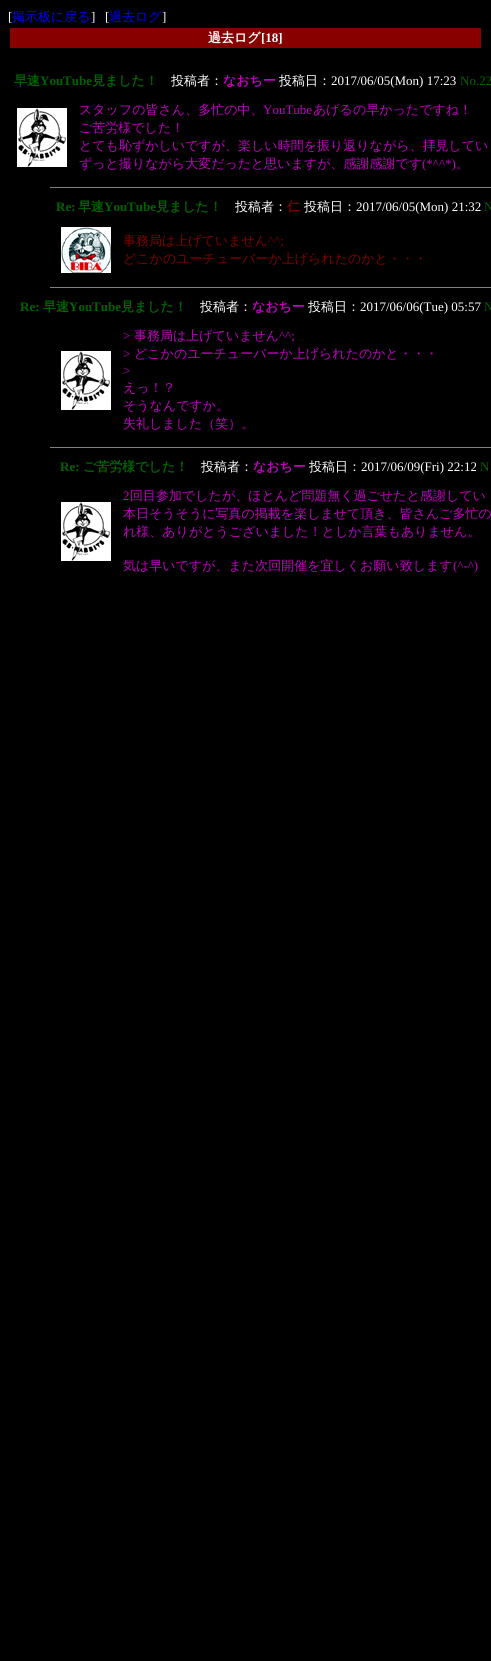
#include <cairo/cairo.h>
#include <math.h>
#include <stddef.h>

typedef struct { double x, y; const char *s; } line_t;
static cairo_t *cr;

static void rgb(unsigned color)
{
	cairo_set_source_rgb(cr, (color >> 16) / 255.0, (color >> 8 & 255) / 255.0, (color & 255) / 255.0);
}

static void image(const char *path, double x, double y, double w, double h)
{
	cairo_surface_t *image = cairo_image_surface_create_from_png(path);
	cairo_save(cr);
	cairo_set_source_surface(cr, image, x, y);
	cairo_rectangle(cr, x, y, w, h);
	cairo_fill(cr);
	cairo_restore(cr);
	cairo_surface_destroy(image);
}

int main(void) {
	cairo_surface_t *surface = cairo_image_surface_create(CAIRO_FORMAT_RGB24, 491, 1661);
	cr = cairo_create(surface);
	cairo_font_options_t *options = cairo_font_options_create();
	cairo_font_options_set_hint_metrics(options, CAIRO_HINT_METRICS_OFF);
	cairo_font_options_set_hint_style(options, CAIRO_HINT_STYLE_NONE);
	cairo_set_font_options(cr, options);
	cairo_set_miter_limit(cr, 4);
	rgb(0x000000);
	cairo_paint(cr);
	rgb(0x880000);
	cairo_rectangle(cr, 10, 28, 471, 20);
	cairo_fill(cr);
	image("img/1.png", 17, 108, 50, 59);
	rgb(0x808080);
	cairo_rectangle(cr, 50, 187, 441, 1);
	cairo_fill(cr);
	image("img/2.png", 61, 227, 50, 46);
	cairo_rectangle(cr, 50, 287, 441, 1);
	cairo_fill(cr);
	image("img/1.png", 61, 351, 50, 59);
	cairo_rectangle(cr, 50, 447, 441, 1);
	cairo_fill(cr);
	image("img/1.png", 61, 502, 50, 59);
	cairo_select_font_face(cr, "Liberation Serif", CAIRO_FONT_SLANT_NORMAL, CAIRO_FONT_WEIGHT_NORMAL);
	cairo_set_font_size(cr, 13);
	rgb(0xffffff);
	cairo_move_to(cr, 8, 21);
	cairo_show_text(cr, "[");
	cairo_select_font_face(cr, "WenQuanYi Zen Hei Medium", CAIRO_FONT_SLANT_NORMAL, CAIRO_FONT_WEIGHT_NORMAL);
	rgb(0x0000ff);
	cairo_move_to(cr, 12, 21);
	cairo_show_text(cr, "掲示板に戻る");
	cairo_select_font_face(cr, "Liberation Serif", CAIRO_FONT_SLANT_NORMAL, CAIRO_FONT_WEIGHT_NORMAL);
	rgb(0xffffff);
	cairo_move_to(cr, 91, 21);
	cairo_show_text(cr, "]   [");
	cairo_select_font_face(cr, "WenQuanYi Zen Hei Medium", CAIRO_FONT_SLANT_NORMAL, CAIRO_FONT_WEIGHT_NORMAL);
	rgb(0x0000ff);
	cairo_move_to(cr, 109, 21);
	cairo_show_text(cr, "過去ログ");
	cairo_select_font_face(cr, "Liberation Serif", CAIRO_FONT_SLANT_NORMAL, CAIRO_FONT_WEIGHT_NORMAL);
	rgb(0xffffff);
	cairo_move_to(cr, 162, 21);
	cairo_show_text(cr, "]");
	cairo_select_font_face(cr, "WenQuanYi Zen Hei", CAIRO_FONT_SLANT_NORMAL, CAIRO_FONT_WEIGHT_BOLD);
	cairo_move_to(cr, 208, 42);
	cairo_show_text(cr, "過去ログ");
	cairo_select_font_face(cr, "Liberation Serif", CAIRO_FONT_SLANT_NORMAL, CAIRO_FONT_WEIGHT_BOLD);
	cairo_move_to(cr, 261, 42);
	cairo_show_text(cr, "[18]");
	cairo_select_font_face(cr, "WenQuanYi Zen Hei", CAIRO_FONT_SLANT_NORMAL, CAIRO_FONT_WEIGHT_BOLD);
	rgb(0x006400);
	cairo_move_to(cr, 14, 85);
	cairo_show_text(cr, "早速");
	cairo_select_font_face(cr, "Liberation Serif", CAIRO_FONT_SLANT_NORMAL, CAIRO_FONT_WEIGHT_BOLD);
	cairo_move_to(cr, 40, 85);
	cairo_show_text(cr, "YouTube");
	cairo_select_font_face(cr, "WenQuanYi Zen Hei", CAIRO_FONT_SLANT_NORMAL, CAIRO_FONT_WEIGHT_BOLD);
	cairo_move_to(cr, 92, 85);
	cairo_show_text(cr, "見ました！");
	cairo_select_font_face(cr, "WenQuanYi Zen Hei Medium", CAIRO_FONT_SLANT_NORMAL, CAIRO_FONT_WEIGHT_NORMAL);
	rgb(0xffffff);
	cairo_move_to(cr, 171, 85);
	cairo_show_text(cr, "投稿者：");
	cairo_select_font_face(cr, "WenQuanYi Zen Hei", CAIRO_FONT_SLANT_NORMAL, CAIRO_FONT_WEIGHT_BOLD);
	rgb(0xc100c1);
	cairo_move_to(cr, 223, 85);
	cairo_show_text(cr, "なおちー");
	cairo_select_font_face(cr, "WenQuanYi Zen Hei Medium", CAIRO_FONT_SLANT_NORMAL, CAIRO_FONT_WEIGHT_NORMAL);
	rgb(0xffffff);
	cairo_move_to(cr, 279, 85);
	cairo_show_text(cr, "投稿日：");
	cairo_select_font_face(cr, "Liberation Serif", CAIRO_FONT_SLANT_NORMAL, CAIRO_FONT_WEIGHT_NORMAL);
	cairo_move_to(cr, 331, 85);
	cairo_show_text(cr, "2017/06/05(Mon) 17:23");
	rgb(0x006400);
	cairo_move_to(cr, 460, 85);
	cairo_show_text(cr, "No.22");
	cairo_select_font_face(cr, "WenQuanYi Zen Hei Medium", CAIRO_FONT_SLANT_NORMAL, CAIRO_FONT_WEIGHT_NORMAL);
	rgb(0xc100c1);
	cairo_move_to(cr, 79, 114);
	cairo_show_text(cr, "スタッフの皆さん、多忙の中、");
	cairo_select_font_face(cr, "Liberation Serif", CAIRO_FONT_SLANT_NORMAL, CAIRO_FONT_WEIGHT_NORMAL);
	cairo_move_to(cr, 263, 114);
	cairo_show_text(cr, "YouTube");
	cairo_select_font_face(cr, "WenQuanYi Zen Hei Medium", CAIRO_FONT_SLANT_NORMAL, CAIRO_FONT_WEIGHT_NORMAL);
	{
		static const line_t items[] = {
			{313, 114, "あげるの早かったですね！"},
			{79, 132, "ご苦労様でした！"},
			{79, 150, "とても恥ずかしいですが、楽しい時間を振り返りながら、拝見してい"},
			{79, 168, "ずっと撮りながら大変だったと思いますが、感謝感謝です"},
		};
		for (size_t i = 0; i < sizeof items / sizeof *items; i++) {
			cairo_move_to(cr, items[i].x, items[i].y);
			cairo_show_text(cr, items[i].s);
		}
	}
	cairo_select_font_face(cr, "Liberation Serif", CAIRO_FONT_SLANT_NORMAL, CAIRO_FONT_WEIGHT_NORMAL);
	cairo_move_to(cr, 422, 168);
	cairo_show_text(cr, "(*^^*)");
	cairo_select_font_face(cr, "WenQuanYi Zen Hei Medium", CAIRO_FONT_SLANT_NORMAL, CAIRO_FONT_WEIGHT_NORMAL);
	cairo_move_to(cr, 456, 168);
	cairo_show_text(cr, "。");
	cairo_select_font_face(cr, "Liberation Serif", CAIRO_FONT_SLANT_NORMAL, CAIRO_FONT_WEIGHT_BOLD);
	rgb(0x006400);
	cairo_move_to(cr, 56, 211);
	cairo_show_text(cr, "Re:");
	cairo_select_font_face(cr, "WenQuanYi Zen Hei", CAIRO_FONT_SLANT_NORMAL, CAIRO_FONT_WEIGHT_BOLD);
	cairo_move_to(cr, 78, 211);
	cairo_show_text(cr, "早速");
	cairo_select_font_face(cr, "Liberation Serif", CAIRO_FONT_SLANT_NORMAL, CAIRO_FONT_WEIGHT_BOLD);
	cairo_move_to(cr, 104, 211);
	cairo_show_text(cr, "YouTube");
	cairo_select_font_face(cr, "WenQuanYi Zen Hei", CAIRO_FONT_SLANT_NORMAL, CAIRO_FONT_WEIGHT_BOLD);
	cairo_move_to(cr, 156, 211);
	cairo_show_text(cr, "見ました！");
	cairo_select_font_face(cr, "WenQuanYi Zen Hei Medium", CAIRO_FONT_SLANT_NORMAL, CAIRO_FONT_WEIGHT_NORMAL);
	rgb(0xffffff);
	cairo_move_to(cr, 235, 211);
	cairo_show_text(cr, "投稿者：");
	cairo_select_font_face(cr, "WenQuanYi Zen Hei", CAIRO_FONT_SLANT_NORMAL, CAIRO_FONT_WEIGHT_BOLD);
	rgb(0x800000);
	cairo_move_to(cr, 287, 211);
	cairo_show_text(cr, "仁");
	cairo_select_font_face(cr, "WenQuanYi Zen Hei Medium", CAIRO_FONT_SLANT_NORMAL, CAIRO_FONT_WEIGHT_NORMAL);
	rgb(0xffffff);
	cairo_move_to(cr, 304, 211);
	cairo_show_text(cr, "投稿日：");
	cairo_select_font_face(cr, "Liberation Serif", CAIRO_FONT_SLANT_NORMAL, CAIRO_FONT_WEIGHT_NORMAL);
	cairo_move_to(cr, 356, 211);
	cairo_show_text(cr, "2017/06/05(Mon) 21:32");
	rgb(0x006400);
	cairo_move_to(cr, 484, 211);
	cairo_show_text(cr, "N");
	cairo_select_font_face(cr, "WenQuanYi Zen Hei Medium", CAIRO_FONT_SLANT_NORMAL, CAIRO_FONT_WEIGHT_NORMAL);
	rgb(0x800000);
	cairo_move_to(cr, 123, 245);
	cairo_show_text(cr, "事務局は上げていません");
	cairo_select_font_face(cr, "Liberation Serif", CAIRO_FONT_SLANT_NORMAL, CAIRO_FONT_WEIGHT_NORMAL);
	cairo_move_to(cr, 268, 245);
	cairo_show_text(cr, "^^;");
	cairo_select_font_face(cr, "WenQuanYi Zen Hei Medium", CAIRO_FONT_SLANT_NORMAL, CAIRO_FONT_WEIGHT_NORMAL);
	cairo_move_to(cr, 123, 263);
	cairo_show_text(cr, "どこかのユーチューバーか上げられたのかと・・・");
	cairo_select_font_face(cr, "Liberation Serif", CAIRO_FONT_SLANT_NORMAL, CAIRO_FONT_WEIGHT_BOLD);
	rgb(0x006400);
	cairo_move_to(cr, 20, 311);
	cairo_show_text(cr, "Re:");
	cairo_select_font_face(cr, "WenQuanYi Zen Hei", CAIRO_FONT_SLANT_NORMAL, CAIRO_FONT_WEIGHT_BOLD);
	cairo_move_to(cr, 43, 311);
	cairo_show_text(cr, "早速");
	cairo_select_font_face(cr, "Liberation Serif", CAIRO_FONT_SLANT_NORMAL, CAIRO_FONT_WEIGHT_BOLD);
	cairo_move_to(cr, 69, 311);
	cairo_show_text(cr, "YouTube");
	cairo_select_font_face(cr, "WenQuanYi Zen Hei", CAIRO_FONT_SLANT_NORMAL, CAIRO_FONT_WEIGHT_BOLD);
	cairo_move_to(cr, 121, 311);
	cairo_show_text(cr, "見ました！");
	cairo_select_font_face(cr, "WenQuanYi Zen Hei Medium", CAIRO_FONT_SLANT_NORMAL, CAIRO_FONT_WEIGHT_NORMAL);
	rgb(0xffffff);
	cairo_move_to(cr, 200, 311);
	cairo_show_text(cr, "投稿者：");
	cairo_select_font_face(cr, "WenQuanYi Zen Hei", CAIRO_FONT_SLANT_NORMAL, CAIRO_FONT_WEIGHT_BOLD);
	rgb(0xc100c1);
	cairo_move_to(cr, 252, 311);
	cairo_show_text(cr, "なおちー");
	cairo_select_font_face(cr, "WenQuanYi Zen Hei Medium", CAIRO_FONT_SLANT_NORMAL, CAIRO_FONT_WEIGHT_NORMAL);
	rgb(0xffffff);
	cairo_move_to(cr, 308, 311);
	cairo_show_text(cr, "投稿日：");
	cairo_select_font_face(cr, "Liberation Serif", CAIRO_FONT_SLANT_NORMAL, CAIRO_FONT_WEIGHT_NORMAL);
	cairo_move_to(cr, 360, 311);
	cairo_show_text(cr, "2017/06/06(Tue) 05:57");
	rgb(0x006400);
	cairo_move_to(cr, 484, 311);
	cairo_show_text(cr, "N");
	rgb(0xc100c1);
	cairo_move_to(cr, 123, 340);
	cairo_show_text(cr, ">");
	cairo_select_font_face(cr, "WenQuanYi Zen Hei Medium", CAIRO_FONT_SLANT_NORMAL, CAIRO_FONT_WEIGHT_NORMAL);
	cairo_move_to(cr, 134, 340);
	cairo_show_text(cr, "事務局は上げていません");
	cairo_select_font_face(cr, "Liberation Serif", CAIRO_FONT_SLANT_NORMAL, CAIRO_FONT_WEIGHT_NORMAL);
	cairo_move_to(cr, 279, 340);
	cairo_show_text(cr, "^^;");
	cairo_move_to(cr, 123, 358);
	cairo_show_text(cr, ">");
	cairo_select_font_face(cr, "WenQuanYi Zen Hei Medium", CAIRO_FONT_SLANT_NORMAL, CAIRO_FONT_WEIGHT_NORMAL);
	cairo_move_to(cr, 134, 358);
	cairo_show_text(cr, "どこかのユーチューバーか上げられたのかと・・・");
	cairo_select_font_face(cr, "Liberation Serif", CAIRO_FONT_SLANT_NORMAL, CAIRO_FONT_WEIGHT_NORMAL);
	cairo_move_to(cr, 123, 375);
	cairo_show_text(cr, ">");
	cairo_select_font_face(cr, "WenQuanYi Zen Hei Medium", CAIRO_FONT_SLANT_NORMAL, CAIRO_FONT_WEIGHT_NORMAL);
	{
		static const line_t items[] = {
			{123, 392, "えっ！？"},
			{123, 410, "そうなんですか。"},
			{123, 428, "失礼しました（笑）。"},
		};
		for (size_t i = 0; i < sizeof items / sizeof *items; i++) {
			cairo_move_to(cr, items[i].x, items[i].y);
			cairo_show_text(cr, items[i].s);
		}
	}
	cairo_select_font_face(cr, "Liberation Serif", CAIRO_FONT_SLANT_NORMAL, CAIRO_FONT_WEIGHT_BOLD);
	rgb(0x006400);
	cairo_move_to(cr, 60, 471);
	cairo_show_text(cr, "Re:");
	cairo_select_font_face(cr, "WenQuanYi Zen Hei", CAIRO_FONT_SLANT_NORMAL, CAIRO_FONT_WEIGHT_BOLD);
	cairo_move_to(cr, 83, 471);
	cairo_show_text(cr, "ご苦労様でした！");
	cairo_select_font_face(cr, "WenQuanYi Zen Hei Medium", CAIRO_FONT_SLANT_NORMAL, CAIRO_FONT_WEIGHT_NORMAL);
	rgb(0xffffff);
	cairo_move_to(cr, 201, 471);
	cairo_show_text(cr, "投稿者：");
	cairo_select_font_face(cr, "WenQuanYi Zen Hei", CAIRO_FONT_SLANT_NORMAL, CAIRO_FONT_WEIGHT_BOLD);
	rgb(0xc100c1);
	cairo_move_to(cr, 253, 471);
	cairo_show_text(cr, "なおちー");
	cairo_select_font_face(cr, "WenQuanYi Zen Hei Medium", CAIRO_FONT_SLANT_NORMAL, CAIRO_FONT_WEIGHT_NORMAL);
	rgb(0xffffff);
	cairo_move_to(cr, 309, 471);
	cairo_show_text(cr, "投稿日：");
	cairo_select_font_face(cr, "Liberation Serif", CAIRO_FONT_SLANT_NORMAL, CAIRO_FONT_WEIGHT_NORMAL);
	cairo_move_to(cr, 361, 471);
	cairo_show_text(cr, "2017/06/09(Fri) 22:12");
	rgb(0x006400);
	cairo_move_to(cr, 480, 471);
	cairo_show_text(cr, "N");
	rgb(0xc100c1);
	cairo_move_to(cr, 123, 500);
	cairo_show_text(cr, "2");
	cairo_select_font_face(cr, "WenQuanYi Zen Hei Medium", CAIRO_FONT_SLANT_NORMAL, CAIRO_FONT_WEIGHT_NORMAL);
	{
		static const line_t items[] = {
			{130, 500, "回目参加でしたが、ほとんど問題無く過ごせたと感謝してい"},
			{123, 518, "本日そうそうに写真の掲載を楽しませて頂き、皆さんご多忙の"},
			{123, 536, "れ様、ありがとうございました！としか言葉もありません。"},
			{123, 570, "気は早いですが、また次回開催を宜しくお願い致します"},
		};
		for (size_t i = 0; i < sizeof items / sizeof *items; i++) {
			cairo_move_to(cr, items[i].x, items[i].y);
			cairo_show_text(cr, items[i].s);
		}
	}
	cairo_select_font_face(cr, "Liberation Serif", CAIRO_FONT_SLANT_NORMAL, CAIRO_FONT_WEIGHT_NORMAL);
	cairo_move_to(cr, 453, 570);
	cairo_show_text(cr, "(^-^)");
	cairo_surface_write_to_png(surface, "page.png");
	cairo_font_options_destroy(options);
	cairo_destroy(cr);
	cairo_surface_destroy(surface);
	return 0;
}
